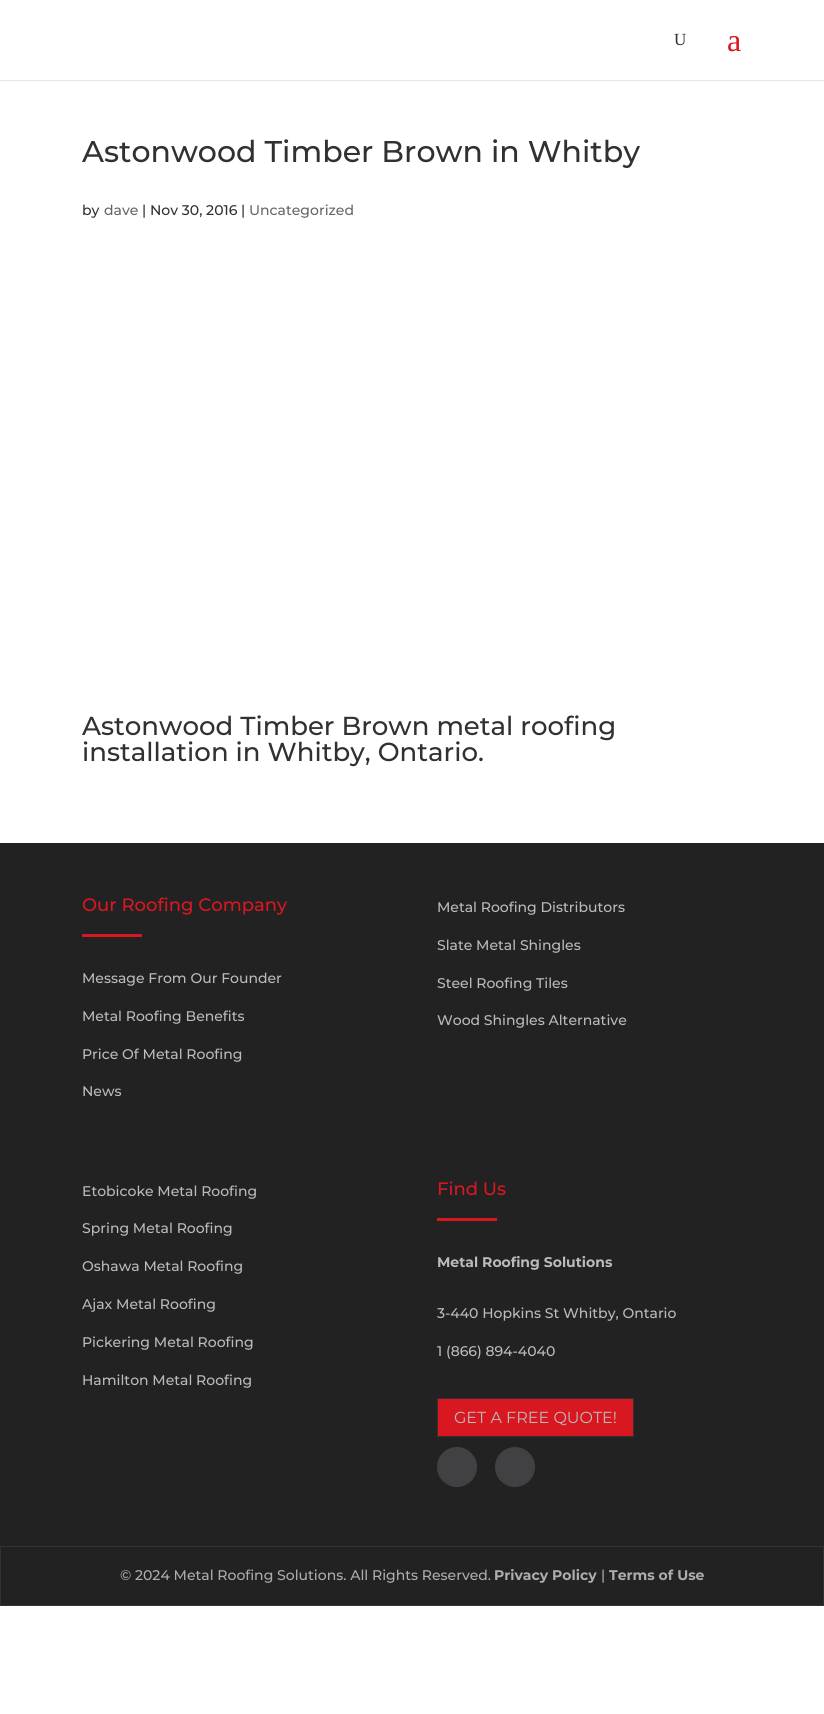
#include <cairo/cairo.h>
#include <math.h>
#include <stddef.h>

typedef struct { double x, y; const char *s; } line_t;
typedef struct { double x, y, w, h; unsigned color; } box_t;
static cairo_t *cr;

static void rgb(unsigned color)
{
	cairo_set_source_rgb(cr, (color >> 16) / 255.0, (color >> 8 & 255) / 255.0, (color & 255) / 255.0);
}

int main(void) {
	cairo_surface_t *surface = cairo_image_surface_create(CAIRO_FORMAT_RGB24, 824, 1714);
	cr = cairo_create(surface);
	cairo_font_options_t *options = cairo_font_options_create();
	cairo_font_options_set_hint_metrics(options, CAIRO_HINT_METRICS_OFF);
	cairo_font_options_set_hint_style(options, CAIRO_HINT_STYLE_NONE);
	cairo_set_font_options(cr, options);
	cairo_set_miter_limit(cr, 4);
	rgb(0xffffff);
	cairo_paint(cr);
	{
		static const box_t items[] = {
			{0, 80, 824, 1, 0xe6e6e6},
			{0, 843, 824, 762, 0x222222},
			{82, 934, 60, 3, 0xd91720},
			{437, 1218, 60, 3, 0xd91720},
		};
		for (size_t i = 0; i < sizeof items / sizeof *items; i++) {
			rgb(items[i].color);
			cairo_rectangle(cr, items[i].x, items[i].y, items[i].w, items[i].h);
			cairo_fill(cr);
		}
	}
	cairo_rectangle(cr, 437.5, 1398.5, 196, 38);
	cairo_fill_preserve(cr);
	rgb(0x313131);
	cairo_set_line_width(cr, 1);
	cairo_stroke(cr);
	rgb(0x414042);
	cairo_arc(cr, 457, 1467, 20, 0, 2 * M_PI);
	cairo_fill(cr);
	cairo_arc(cr, 515, 1467, 20, 0, 2 * M_PI);
	cairo_fill(cr);
	cairo_rectangle(cr, 0.5, 1546.5, 823, 59);
	rgb(0x333333);
	cairo_stroke(cr);
	cairo_select_font_face(cr, "Liberation Serif", CAIRO_FONT_SLANT_NORMAL, CAIRO_FONT_WEIGHT_NORMAL);
	cairo_set_font_size(cr, 17);
	rgb(0x313131);
	cairo_move_to(cr, 674, 45);
	cairo_show_text(cr, "U");
	cairo_set_font_size(cr, 32);
	rgb(0xd91720);
	cairo_move_to(cr, 727, 51);
	cairo_show_text(cr, "a");
	cairo_select_font_face(cr, "Montserrat Medium", CAIRO_FONT_SLANT_NORMAL, CAIRO_FONT_WEIGHT_NORMAL);
	cairo_set_font_size(cr, 30);
	rgb(0x313131);
	cairo_move_to(cr, 82, 162);
	cairo_show_text(cr, "Astonwood Timber Brown in Whitby");
	cairo_set_font_size(cr, 14);
	cairo_move_to(cr, 82, 215);
	cairo_show_text(cr, "by");
	rgb(0x666666);
	cairo_move_to(cr, 104, 215);
	cairo_show_text(cr, "dave");
	rgb(0x313131);
	cairo_move_to(cr, 142, 215);
	cairo_show_text(cr, "| Nov 30, 2016 |");
	rgb(0x666666);
	cairo_move_to(cr, 249, 215);
	cairo_show_text(cr, "Uncategorized");
	cairo_set_font_size(cr, 26);
	rgb(0x313131);
	cairo_move_to(cr, 82, 735);
	cairo_show_text(cr, "Astonwood Timber Brown metal roofing");
	cairo_move_to(cr, 82, 761);
	cairo_show_text(cr, "installation in Whitby, Ontario.");
	cairo_set_font_size(cr, 18);
	rgb(0xd91720);
	cairo_move_to(cr, 82, 911);
	cairo_show_text(cr, "Our Roofing Company");
	cairo_set_font_size(cr, 14);
	rgb(0xbbbbbb);
	{
		static const line_t items[] = {
			{82, 983, "Message From Our Founder"},
			{82, 1021, "Metal Roofing Benefits"},
			{82, 1059, "Price Of Metal Roofing"},
			{82, 1096, "News"},
			{437, 912, "Metal Roofing Distributors"},
			{437, 950, "Slate Metal Shingles"},
			{437, 988, "Steel Roofing Tiles"},
			{437, 1025, "Wood Shingles Alternative"},
			{82, 1196, "Etobicoke Metal Roofing"},
			{82, 1233, "Spring Metal Roofing"},
			{82, 1271, "Oshawa Metal Roofing"},
			{82, 1309, "Ajax Metal Roofing"},
			{82, 1347, "Pickering Metal Roofing"},
			{82, 1385, "Hamilton Metal Roofing"},
		};
		for (size_t i = 0; i < sizeof items / sizeof *items; i++) {
			cairo_move_to(cr, items[i].x, items[i].y);
			cairo_show_text(cr, items[i].s);
		}
	}
	cairo_set_font_size(cr, 18);
	rgb(0xd91720);
	cairo_move_to(cr, 437, 1195);
	cairo_show_text(cr, "Find Us");
	cairo_select_font_face(cr, "Montserrat", CAIRO_FONT_SLANT_NORMAL, CAIRO_FONT_WEIGHT_BOLD);
	cairo_set_font_size(cr, 14);
	rgb(0xbbbbbb);
	cairo_move_to(cr, 437, 1267);
	cairo_show_text(cr, "Metal Roofing Solutions");
	cairo_select_font_face(cr, "Montserrat Medium", CAIRO_FONT_SLANT_NORMAL, CAIRO_FONT_WEIGHT_NORMAL);
	cairo_move_to(cr, 437, 1318);
	cairo_show_text(cr, "3-440 Hopkins St Whitby, Ontario");
	cairo_move_to(cr, 437, 1356);
	cairo_show_text(cr, "1 (866) 894-4040");
	cairo_select_font_face(cr, "Montserrat", CAIRO_FONT_SLANT_NORMAL, CAIRO_FONT_WEIGHT_NORMAL);
	cairo_set_font_size(cr, 16);
	cairo_move_to(cr, 454, 1423);
	cairo_show_text(cr, "GET A FREE QUOTE!");
	cairo_select_font_face(cr, "Montserrat Medium", CAIRO_FONT_SLANT_NORMAL, CAIRO_FONT_WEIGHT_NORMAL);
	cairo_set_font_size(cr, 14);
	rgb(0xadadad);
	cairo_move_to(cr, 120, 1580);
	cairo_show_text(cr, "© 2024 Metal Roofing Solutions. All Rights Reserved.");
	cairo_select_font_face(cr, "Montserrat", CAIRO_FONT_SLANT_NORMAL, CAIRO_FONT_WEIGHT_BOLD);
	cairo_move_to(cr, 494, 1580);
	cairo_show_text(cr, "Privacy Policy");
	cairo_select_font_face(cr, "Montserrat Medium", CAIRO_FONT_SLANT_NORMAL, CAIRO_FONT_WEIGHT_NORMAL);
	cairo_move_to(cr, 601, 1580);
	cairo_show_text(cr, "|");
	cairo_select_font_face(cr, "Montserrat", CAIRO_FONT_SLANT_NORMAL, CAIRO_FONT_WEIGHT_BOLD);
	cairo_move_to(cr, 609, 1580);
	cairo_show_text(cr, "Terms of Use");
	cairo_surface_write_to_png(surface, "page.png");
	cairo_font_options_destroy(options);
	cairo_destroy(cr);
	cairo_surface_destroy(surface);
	return 0;
}
